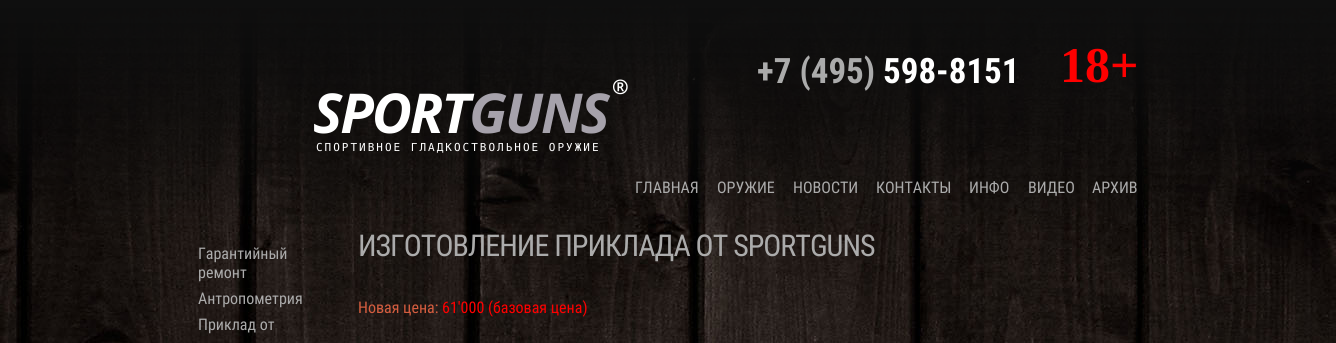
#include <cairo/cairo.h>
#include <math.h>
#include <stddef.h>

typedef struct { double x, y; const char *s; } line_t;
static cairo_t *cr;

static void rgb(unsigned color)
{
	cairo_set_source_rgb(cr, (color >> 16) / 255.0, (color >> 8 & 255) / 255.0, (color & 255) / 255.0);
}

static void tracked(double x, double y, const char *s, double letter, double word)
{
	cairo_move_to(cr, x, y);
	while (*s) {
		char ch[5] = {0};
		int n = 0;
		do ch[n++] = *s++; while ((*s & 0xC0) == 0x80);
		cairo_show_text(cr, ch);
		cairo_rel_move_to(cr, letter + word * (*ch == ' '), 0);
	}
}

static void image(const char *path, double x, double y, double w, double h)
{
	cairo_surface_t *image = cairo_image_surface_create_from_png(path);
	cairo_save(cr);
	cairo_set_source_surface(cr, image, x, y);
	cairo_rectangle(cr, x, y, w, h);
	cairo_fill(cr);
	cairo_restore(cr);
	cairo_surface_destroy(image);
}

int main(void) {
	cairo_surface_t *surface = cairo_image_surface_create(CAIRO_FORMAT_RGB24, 1336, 343);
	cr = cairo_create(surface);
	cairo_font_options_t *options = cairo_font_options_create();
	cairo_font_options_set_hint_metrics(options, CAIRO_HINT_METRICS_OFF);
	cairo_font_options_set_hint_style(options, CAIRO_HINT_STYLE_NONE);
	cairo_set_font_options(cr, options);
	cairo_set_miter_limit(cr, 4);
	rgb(0xffffff);
	cairo_paint(cr);
	image("img/1.png", 0, 0, 1336, 343);
	cairo_select_font_face(cr, "Roboto Condensed", CAIRO_FONT_SLANT_NORMAL, CAIRO_FONT_WEIGHT_BOLD);
	cairo_set_font_size(cr, 35);
	rgb(0xababab);
	cairo_move_to(cr, 757, 83);
	cairo_show_text(cr, "+7 (495)");
	rgb(0xffffff);
	cairo_move_to(cr, 883, 83);
	cairo_show_text(cr, "598-8151");
	cairo_select_font_face(cr, "Liberation Serif", CAIRO_FONT_SLANT_NORMAL, CAIRO_FONT_WEIGHT_BOLD);
	cairo_set_font_size(cr, 50);
	rgb(0xff0000);
	cairo_move_to(cr, 1060, 82);
	cairo_show_text(cr, "18+");
	cairo_select_font_face(cr, "Open Sans", CAIRO_FONT_SLANT_ITALIC, CAIRO_FONT_WEIGHT_BOLD);
	cairo_set_font_size(cr, 20);
	rgb(0xffffff);
	cairo_move_to(cr, 612, 94);
	cairo_show_text(cr, "®");
	cairo_set_font_size(cr, 55);
	tracked(313, 133, "SPORT", -2, 0);
	rgb(0xa6a2ab);
	tracked(469, 133, "GUNS", -2, 0);
	cairo_select_font_face(cr, "DejaVu Sans Mono", CAIRO_FONT_SLANT_NORMAL, CAIRO_FONT_WEIGHT_NORMAL);
	cairo_set_font_size(cr, 11);
	rgb(0xffffff);
	tracked(316, 151, "СПОРТИВНОЕ ГЛАДКОСТВОЛЬНОЕ ОРУЖИЕ", 2, 0);
	cairo_select_font_face(cr, "Roboto Condensed", CAIRO_FONT_SLANT_NORMAL, CAIRO_FONT_WEIGHT_NORMAL);
	cairo_set_font_size(cr, 16);
	rgb(0xababab);
	{
		static const line_t items[] = {
			{635, 193, "ГЛАВНАЯ"},
			{717, 193, "ОРУЖИЕ"},
			{793, 193, "НОВОСТИ"},
			{876, 193, "КОНТАКТЫ"},
			{969, 193, "ИНФО"},
			{1028, 193, "ВИДЕО"},
			{1092, 193, "АРХИВ"},
			{198, 259, "Гарантийный"},
			{198, 278, "ремонт"},
			{198, 304, "Антропометрия"},
			{198, 330, "Приклад от"},
		};
		for (size_t i = 0; i < sizeof items / sizeof *items; i++) {
			cairo_move_to(cr, items[i].x, items[i].y);
			cairo_show_text(cr, items[i].s);
		}
	}
	cairo_set_font_size(cr, 30);
	tracked(358, 256, "ИЗГОТОВЛЕНИЕ ПРИКЛАДА ОТ SPORTGUNS", -1, 0);
	cairo_set_font_size(cr, 16);
	rgb(0xd55d3f);
	cairo_move_to(cr, 358, 313);
	cairo_show_text(cr, "Новая цена:");
	rgb(0xff0000);
	cairo_move_to(cr, 442, 313);
	cairo_show_text(cr, "61'000 (базовая цена)");
	cairo_surface_write_to_png(surface, "page.png");
	cairo_font_options_destroy(options);
	cairo_destroy(cr);
	cairo_surface_destroy(surface);
	return 0;
}
